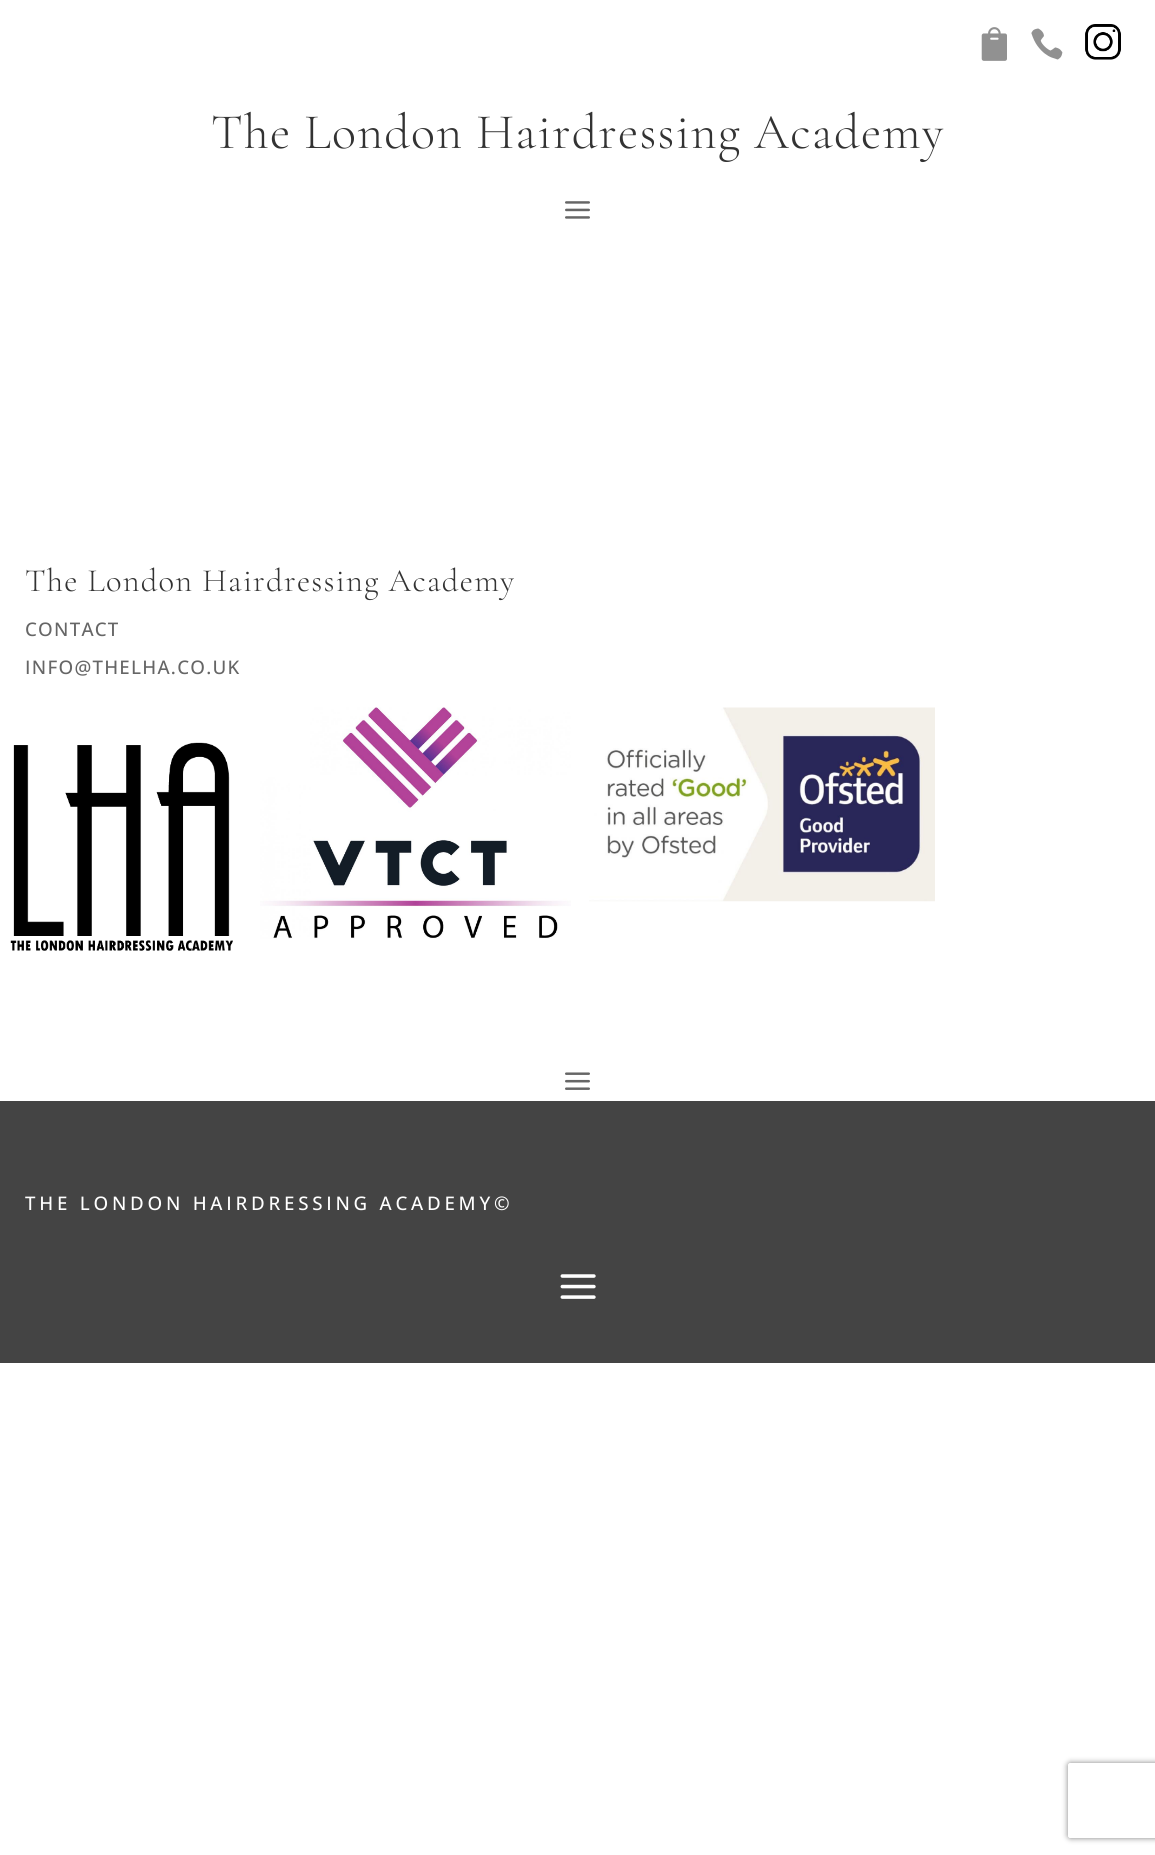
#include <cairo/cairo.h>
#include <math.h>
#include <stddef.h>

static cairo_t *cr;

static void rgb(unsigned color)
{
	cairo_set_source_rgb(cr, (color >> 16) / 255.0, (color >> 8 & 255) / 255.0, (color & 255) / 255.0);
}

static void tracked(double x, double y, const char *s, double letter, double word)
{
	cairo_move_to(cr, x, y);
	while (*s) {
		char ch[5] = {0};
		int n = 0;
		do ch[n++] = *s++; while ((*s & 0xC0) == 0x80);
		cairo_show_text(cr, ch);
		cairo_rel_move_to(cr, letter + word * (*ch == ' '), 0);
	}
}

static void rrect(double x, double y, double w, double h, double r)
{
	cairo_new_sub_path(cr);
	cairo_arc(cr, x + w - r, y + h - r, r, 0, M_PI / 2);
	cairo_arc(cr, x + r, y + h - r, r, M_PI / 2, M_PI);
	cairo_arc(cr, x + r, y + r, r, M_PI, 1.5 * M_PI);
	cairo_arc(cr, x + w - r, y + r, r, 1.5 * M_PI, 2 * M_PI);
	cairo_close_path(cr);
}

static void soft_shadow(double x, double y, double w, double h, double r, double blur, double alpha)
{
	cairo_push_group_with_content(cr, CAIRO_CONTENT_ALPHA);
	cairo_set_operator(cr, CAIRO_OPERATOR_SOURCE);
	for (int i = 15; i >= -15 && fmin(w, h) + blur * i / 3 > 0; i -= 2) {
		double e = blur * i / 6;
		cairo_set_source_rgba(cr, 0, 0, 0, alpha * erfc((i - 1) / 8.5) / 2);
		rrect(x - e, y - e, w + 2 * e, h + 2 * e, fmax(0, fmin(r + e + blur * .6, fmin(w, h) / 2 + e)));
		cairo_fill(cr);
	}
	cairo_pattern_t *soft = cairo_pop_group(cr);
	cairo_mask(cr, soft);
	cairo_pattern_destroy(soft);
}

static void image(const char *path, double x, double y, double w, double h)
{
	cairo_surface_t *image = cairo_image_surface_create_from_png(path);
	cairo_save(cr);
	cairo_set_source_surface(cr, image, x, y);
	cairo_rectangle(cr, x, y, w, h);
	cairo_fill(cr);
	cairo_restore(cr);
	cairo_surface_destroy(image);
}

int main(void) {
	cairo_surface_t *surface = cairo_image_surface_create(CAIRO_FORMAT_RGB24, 1155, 1855);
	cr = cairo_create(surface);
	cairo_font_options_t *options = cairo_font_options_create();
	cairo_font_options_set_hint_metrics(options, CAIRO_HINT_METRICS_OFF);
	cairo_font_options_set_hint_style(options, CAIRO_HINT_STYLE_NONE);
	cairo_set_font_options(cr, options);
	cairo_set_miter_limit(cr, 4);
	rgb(0xffffff);
	cairo_paint(cr);
	image("img/1.png", 981, 27, 26, 34);
	image("img/2.png", 1031, 28, 32, 32);
	image("img/3.png", 1085, 24, 36, 36);
	image("img/4.png", 565, 201, 25, 18);
	image("img/5.png", 10, 742, 223, 209);
	image("img/6.png", 260, 707, 311, 232);
	image("img/7.png", 589, 707, 346, 195);
	image("img/8.png", 565, 1072, 25, 18);
	rgb(0x444444);
	cairo_rectangle(cr, 0, 1101, 1155, 262);
	cairo_fill(cr);
	image("img/9.png", 560, 1274, 36, 25);
	cairo_save(cr);
	cairo_set_fill_rule(cr, CAIRO_FILL_RULE_EVEN_ODD);
	cairo_new_path(cr);
	cairo_move_to(cr, 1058, 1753);
	cairo_line_to(cr, 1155, 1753);
	cairo_line_to(cr, 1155, 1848);
	cairo_line_to(cr, 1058, 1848);
	cairo_close_path(cr);
	cairo_move_to(cr, 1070.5, 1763);
	cairo_line_to(cr, 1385.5, 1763);
	cairo_curve_to(cr, 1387, 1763, 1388, 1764, 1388, 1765.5);
	cairo_line_to(cr, 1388, 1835.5);
	cairo_curve_to(cr, 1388, 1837, 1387, 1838, 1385.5, 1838);
	cairo_line_to(cr, 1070.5, 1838);
	cairo_curve_to(cr, 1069, 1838, 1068, 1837, 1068, 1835.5);
	cairo_line_to(cr, 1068, 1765.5);
	cairo_curve_to(cr, 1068, 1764, 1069, 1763, 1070.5, 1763);
	cairo_close_path(cr);
	cairo_clip(cr);
	rgb(0x808080);
	soft_shadow(1068, 1763, 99, 75, 2.5, 3, 1);
	cairo_restore(cr);
	cairo_select_font_face(cr, "Cormorant Garamond Light", CAIRO_FONT_SLANT_NORMAL, CAIRO_FONT_WEIGHT_NORMAL);
	cairo_set_font_size(cr, 50);
	rgb(0x333333);
	tracked(211, 148, "The London Hairdressing Academy", 1.25, 0);
	cairo_set_font_size(cr, 32.5);
	tracked(25, 591, "The London Hairdressing Academy", 1.25, 0);
	cairo_select_font_face(cr, "Open Sans Medium", CAIRO_FONT_SLANT_NORMAL, CAIRO_FONT_WEIGHT_NORMAL);
	cairo_set_font_size(cr, 18.75);
	rgb(0x666666);
	tracked(25, 636, "CONTACT", 1.25, 0);
	tracked(25, 674, "INFO@THELHA.CO.UK", 1.25, 0);
	rgb(0xffffff);
	tracked(25, 1210, "THE LONDON HAIRDRESSING ACADEMY©", 3.75, 0);
	cairo_surface_write_to_png(surface, "page.png");
	cairo_font_options_destroy(options);
	cairo_destroy(cr);
	cairo_surface_destroy(surface);
	return 0;
}
